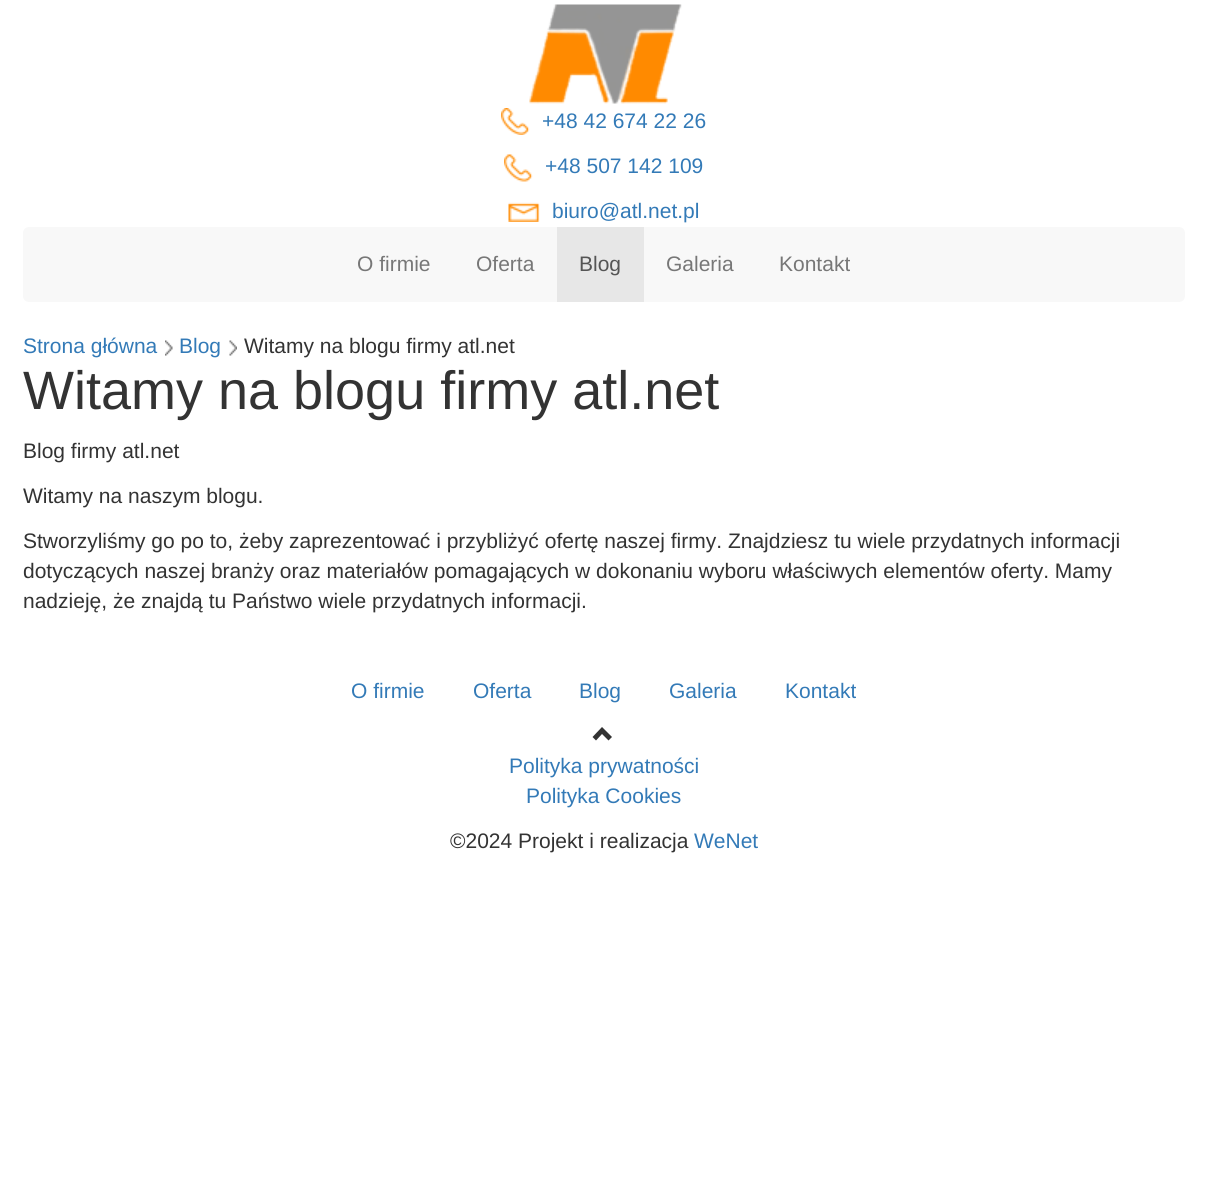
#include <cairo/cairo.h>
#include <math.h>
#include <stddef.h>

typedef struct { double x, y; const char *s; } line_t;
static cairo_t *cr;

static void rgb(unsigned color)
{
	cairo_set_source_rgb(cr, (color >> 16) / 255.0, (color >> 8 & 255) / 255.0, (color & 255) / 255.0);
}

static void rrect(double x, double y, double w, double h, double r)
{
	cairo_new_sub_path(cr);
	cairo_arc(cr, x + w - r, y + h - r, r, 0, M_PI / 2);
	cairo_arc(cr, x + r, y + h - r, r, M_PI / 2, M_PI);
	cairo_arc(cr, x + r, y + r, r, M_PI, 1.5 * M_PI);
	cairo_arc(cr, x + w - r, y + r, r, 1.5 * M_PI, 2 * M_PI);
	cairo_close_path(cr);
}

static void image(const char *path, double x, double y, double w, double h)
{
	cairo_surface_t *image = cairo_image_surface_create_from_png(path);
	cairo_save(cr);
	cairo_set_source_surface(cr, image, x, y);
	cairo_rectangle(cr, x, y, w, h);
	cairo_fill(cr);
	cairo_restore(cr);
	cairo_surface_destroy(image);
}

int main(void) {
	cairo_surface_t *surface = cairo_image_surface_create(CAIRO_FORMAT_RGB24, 1207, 1187);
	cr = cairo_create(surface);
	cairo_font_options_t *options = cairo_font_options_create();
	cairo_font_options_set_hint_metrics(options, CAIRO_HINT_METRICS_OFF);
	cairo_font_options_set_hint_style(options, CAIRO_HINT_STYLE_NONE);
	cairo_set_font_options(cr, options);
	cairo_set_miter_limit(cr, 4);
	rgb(0xffffff);
	cairo_paint(cr);
	image("img/1.png", 529, 4, 153, 100);
	image("img/2.png", 501, 108, 29, 27);
	image("img/3.png", 504, 154, 29, 28);
	image("img/4.png", 508, 202, 32, 20);
	rgb(0xf8f8f8);
	rrect(23, 227, 1162, 75, 6);
	cairo_fill(cr);
	rgb(0xe7e7e7);
	cairo_rectangle(cr, 557, 227, 87, 75);
	cairo_fill(cr);
	image("img/5.png", 165, 340, 8, 16);
	image("img/6.png", 229, 340, 8, 16);
	rgb(0x333333);
	cairo_new_path(cr);
	cairo_move_to(cr, 612, 737);
	cairo_line_to(cr, 608.5, 740.5);
	cairo_line_to(cr, 602, 734);
	cairo_line_to(cr, 596, 740.5);
	cairo_line_to(cr, 592.5, 737);
	cairo_line_to(cr, 602, 727);
	cairo_close_path(cr);
	cairo_fill(cr);
	cairo_select_font_face(cr, "Liberation Sans", CAIRO_FONT_SLANT_NORMAL, CAIRO_FONT_WEIGHT_NORMAL);
	cairo_set_font_size(cr, 21);
	rgb(0x337ab7);
	{
		static const line_t items[] = {
			{542, 128, "+48 42 674 22 26"},
			{545, 173, "+48 507 142 109"},
			{552, 218, "biuro@atl.net.pl"},
		};
		for (size_t i = 0; i < sizeof items / sizeof *items; i++) {
			cairo_move_to(cr, items[i].x, items[i].y);
			cairo_show_text(cr, items[i].s);
		}
	}
	rgb(0x777777);
	cairo_move_to(cr, 357, 271);
	cairo_show_text(cr, "O firmie");
	cairo_move_to(cr, 476, 271);
	cairo_show_text(cr, "Oferta");
	rgb(0x555555);
	cairo_move_to(cr, 579, 271);
	cairo_show_text(cr, "Blog");
	rgb(0x777777);
	cairo_move_to(cr, 666, 271);
	cairo_show_text(cr, "Galeria");
	cairo_move_to(cr, 779, 271);
	cairo_show_text(cr, "Kontakt");
	rgb(0x337ab7);
	cairo_move_to(cr, 23, 353);
	cairo_show_text(cr, "Strona główna");
	cairo_move_to(cr, 179, 353);
	cairo_show_text(cr, "Blog");
	rgb(0x333333);
	cairo_move_to(cr, 244, 353);
	cairo_show_text(cr, "Witamy na blogu firmy atl.net");
	cairo_set_font_size(cr, 54);
	cairo_move_to(cr, 23, 409);
	cairo_show_text(cr, "Witamy na blogu firmy atl.net");
	cairo_set_font_size(cr, 21);
	{
		static const line_t items[] = {
			{23, 458, "Blog firmy atl.net"},
			{23, 503, "Witamy na naszym blogu."},
			{23, 548, "Stworzyliśmy go po to, żeby zaprezentować i przybliżyć ofertę naszej firmy. Znajdziesz tu wiele przydatnych informacji"},
			{23, 578, "dotyczących naszej branży oraz materiałów pomagających w dokonaniu wyboru właściwych elementów oferty. Mamy"},
			{23, 608, "nadzieję, że znajdą tu Państwo wiele przydatnych informacji."},
		};
		for (size_t i = 0; i < sizeof items / sizeof *items; i++) {
			cairo_move_to(cr, items[i].x, items[i].y);
			cairo_show_text(cr, items[i].s);
		}
	}
	rgb(0x337ab7);
	{
		static const line_t items[] = {
			{351, 698, "O firmie"},
			{473, 698, "Oferta"},
			{579, 698, "Blog"},
			{669, 698, "Galeria"},
			{785, 698, "Kontakt"},
			{509, 773, "Polityka prywatności"},
			{526, 803, "Polityka Cookies"},
		};
		for (size_t i = 0; i < sizeof items / sizeof *items; i++) {
			cairo_move_to(cr, items[i].x, items[i].y);
			cairo_show_text(cr, items[i].s);
		}
	}
	rgb(0x333333);
	cairo_move_to(cr, 450, 848);
	cairo_show_text(cr, "©2024 Projekt i realizacja");
	rgb(0x337ab7);
	cairo_move_to(cr, 694, 848);
	cairo_show_text(cr, "WeNet");
	cairo_surface_write_to_png(surface, "page.png");
	cairo_font_options_destroy(options);
	cairo_destroy(cr);
	cairo_surface_destroy(surface);
	return 0;
}
